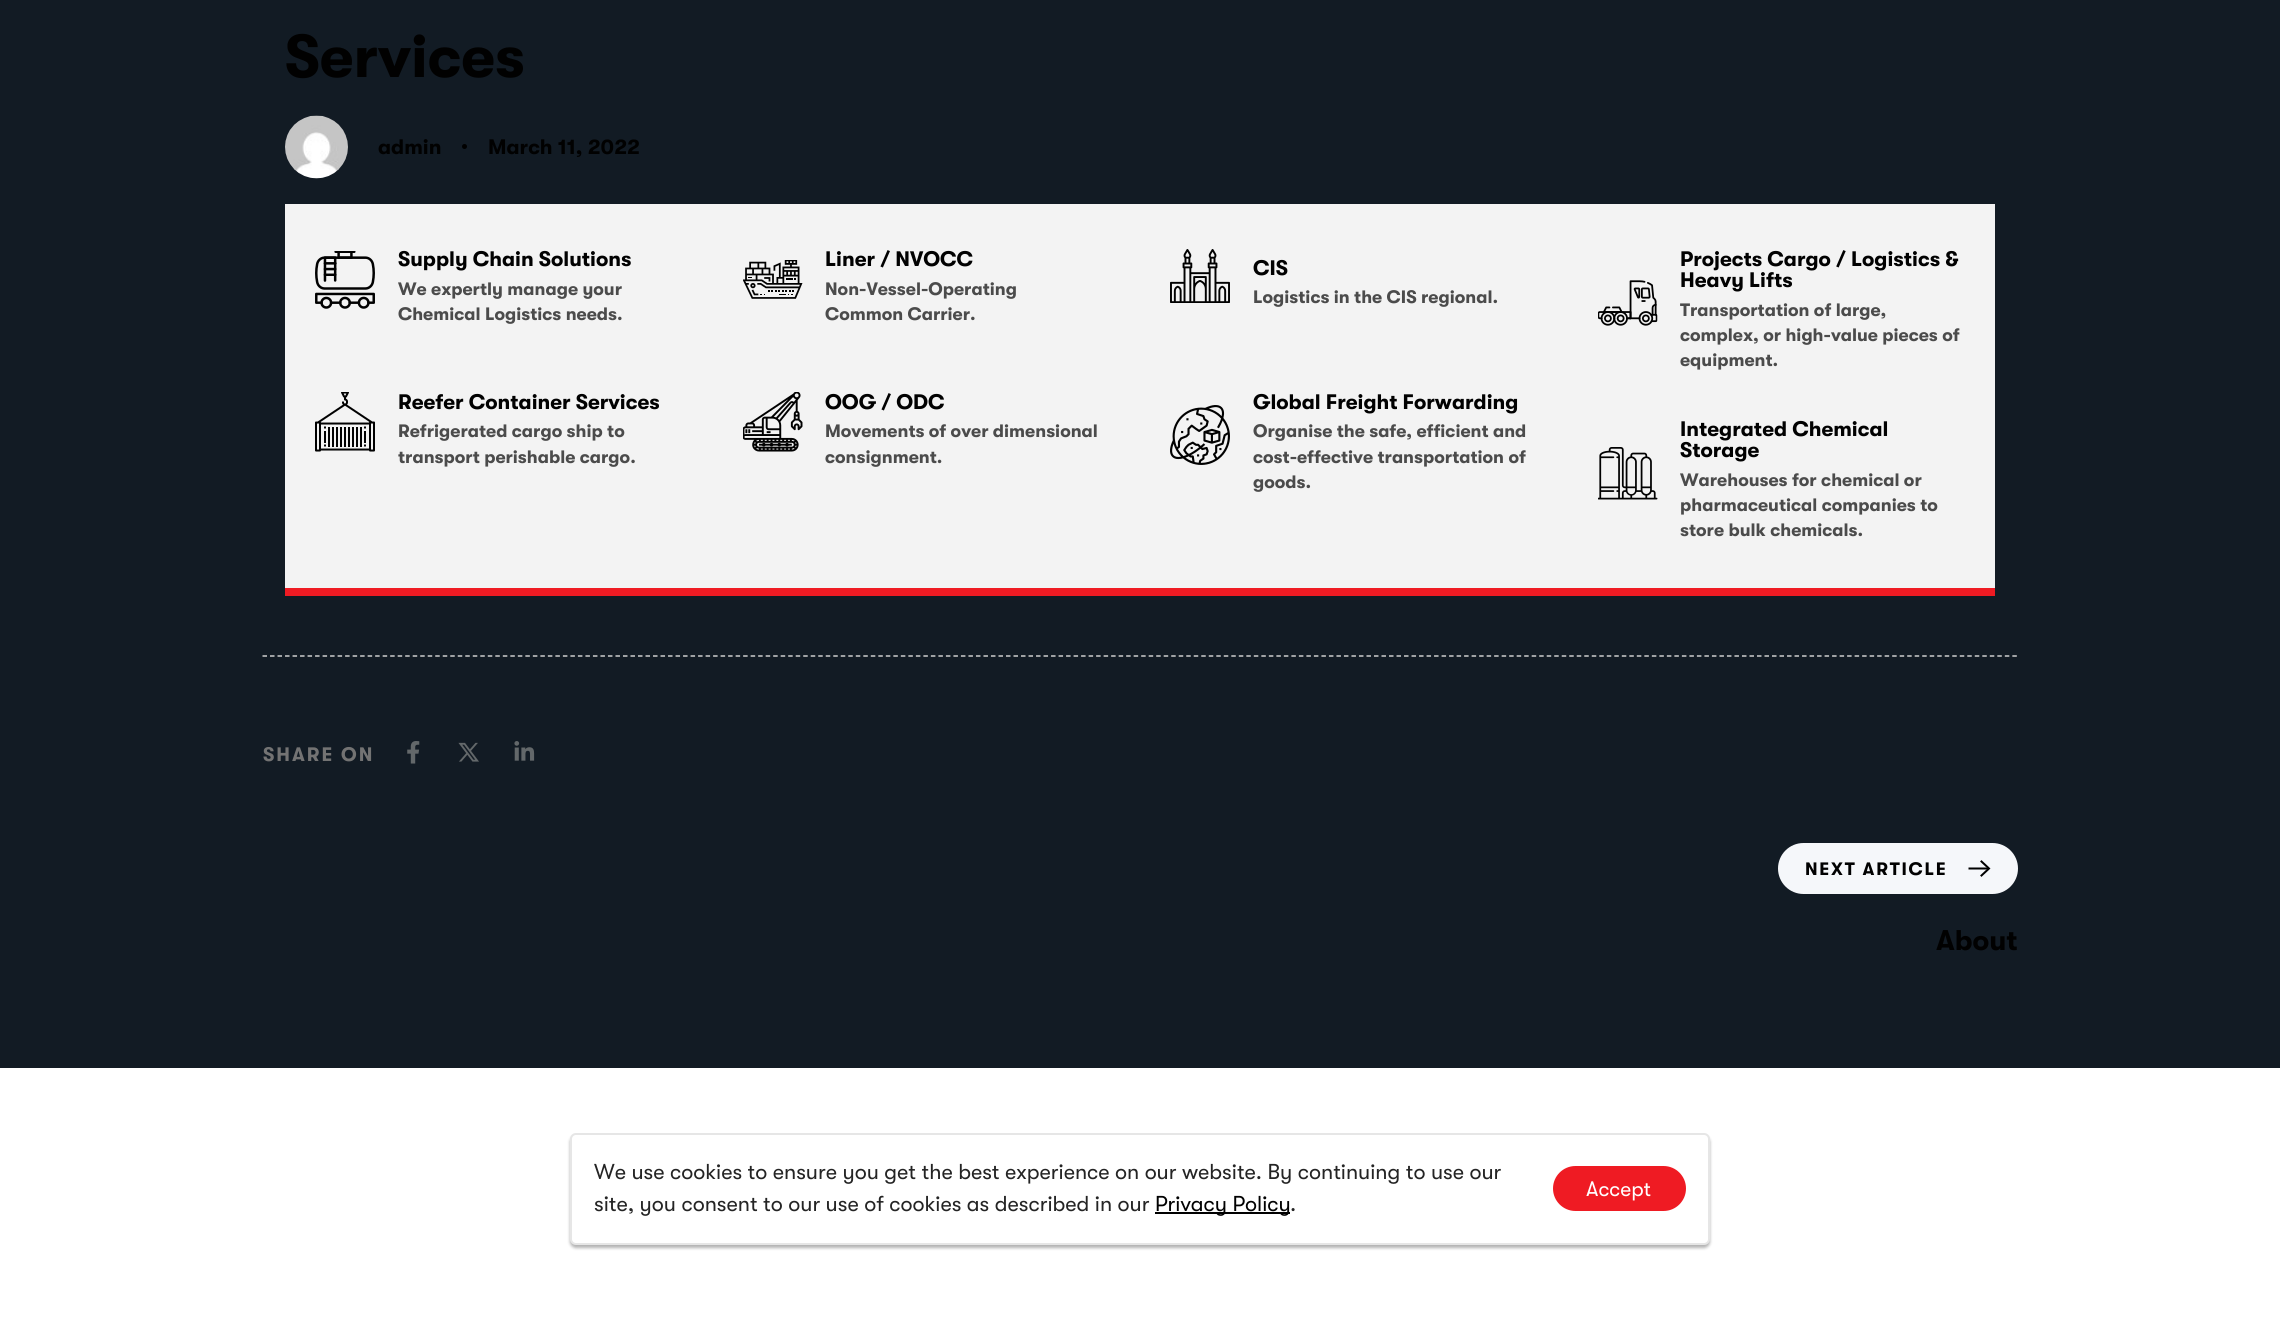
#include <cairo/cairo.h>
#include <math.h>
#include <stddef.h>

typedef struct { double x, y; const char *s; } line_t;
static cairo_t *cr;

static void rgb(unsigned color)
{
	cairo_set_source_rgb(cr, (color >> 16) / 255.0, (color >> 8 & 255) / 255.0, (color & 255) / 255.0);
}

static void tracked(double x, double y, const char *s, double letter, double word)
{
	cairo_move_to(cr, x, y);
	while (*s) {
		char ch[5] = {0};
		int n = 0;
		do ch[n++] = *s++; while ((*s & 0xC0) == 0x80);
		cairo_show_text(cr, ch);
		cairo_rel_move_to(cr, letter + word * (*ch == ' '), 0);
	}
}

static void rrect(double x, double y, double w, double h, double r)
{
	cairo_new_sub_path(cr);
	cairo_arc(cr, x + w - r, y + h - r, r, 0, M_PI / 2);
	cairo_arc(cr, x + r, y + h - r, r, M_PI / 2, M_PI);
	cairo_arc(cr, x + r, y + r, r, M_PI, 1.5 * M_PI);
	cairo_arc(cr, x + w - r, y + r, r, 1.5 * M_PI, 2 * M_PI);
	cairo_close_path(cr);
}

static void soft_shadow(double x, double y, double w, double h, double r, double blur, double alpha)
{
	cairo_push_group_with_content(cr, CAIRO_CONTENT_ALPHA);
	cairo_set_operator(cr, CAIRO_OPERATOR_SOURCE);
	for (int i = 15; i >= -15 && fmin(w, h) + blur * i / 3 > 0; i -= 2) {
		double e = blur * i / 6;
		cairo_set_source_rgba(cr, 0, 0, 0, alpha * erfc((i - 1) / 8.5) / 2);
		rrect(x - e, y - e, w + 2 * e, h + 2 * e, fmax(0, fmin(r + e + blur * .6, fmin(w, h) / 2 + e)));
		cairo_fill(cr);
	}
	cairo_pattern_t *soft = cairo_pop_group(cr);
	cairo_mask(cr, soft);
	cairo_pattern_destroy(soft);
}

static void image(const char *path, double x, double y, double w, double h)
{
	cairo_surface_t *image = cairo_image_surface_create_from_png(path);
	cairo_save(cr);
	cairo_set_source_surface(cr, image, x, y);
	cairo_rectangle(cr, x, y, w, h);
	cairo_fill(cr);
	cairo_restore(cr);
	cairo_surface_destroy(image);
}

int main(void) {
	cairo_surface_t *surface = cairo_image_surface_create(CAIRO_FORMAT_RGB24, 2280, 1329);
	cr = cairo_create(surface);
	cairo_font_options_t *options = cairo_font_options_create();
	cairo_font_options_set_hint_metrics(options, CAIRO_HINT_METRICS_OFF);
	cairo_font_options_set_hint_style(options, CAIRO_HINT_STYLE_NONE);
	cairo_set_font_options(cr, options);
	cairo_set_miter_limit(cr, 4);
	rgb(0xffffff);
	cairo_paint(cr);
	rgb(0x121b24);
	cairo_rectangle(cr, 0, 0, 2280, 1068);
	cairo_fill(cr);
	image("img/1.png", 285, 115, 63, 64);
	rgb(0x000000);
	cairo_arc(cr, 464.5, 146.5, 2.5, 0, 2 * M_PI);
	cairo_fill(cr);
	rgb(0xf3f3f3);
	cairo_rectangle(cr, 285, 204, 1710, 384);
	cairo_fill(cr);
	rgb(0xef1b23);
	cairo_rectangle(cr, 285, 588, 1710, 8);
	cairo_fill(cr);
	image("img/2.png", 315, 251, 60, 58);
	image("img/3.png", 315, 392, 60, 60);
	image("img/4.png", 743, 260, 60, 39);
	image("img/5.png", 743, 392, 60, 60);
	image("img/6.png", 1170, 249, 60, 54);
	image("img/7.png", 1170, 405, 60, 60);
	image("img/8.png", 1598, 280, 60, 46);
	image("img/9.png", 1598, 447, 60, 53);
	cairo_new_path(cr);
	cairo_move_to(cr, 262.5, 656);
	cairo_line_to(cr, 2017.5, 656);
	rgb(0xcecece);
	cairo_set_line_width(cr, 1.5);
	cairo_set_dash(cr, (double[]){4.5, 3.01}, 2, 0);
	cairo_stroke(cr);
	image("img/10.png", 407, 741, 13, 23);
	image("img/11.png", 458, 742, 21, 20);
	image("img/12.png", 514, 741, 21, 20);
	rgb(0xf5f7fa);
	rrect(1778, 843, 240, 51, 25.5);
	cairo_fill(cr);
	cairo_new_path(cr);
	cairo_move_to(cr, 1968.5, 868.5);
	cairo_line_to(cr, 1989, 868.5);
	rgb(0x000000);
	cairo_set_line_width(cr, 2);
	cairo_set_dash(cr, NULL, 0, 0);
	cairo_stroke(cr);
	cairo_new_path(cr);
	cairo_move_to(cr, 1981.5, 861.5);
	cairo_line_to(cr, 1989, 868.5);
	cairo_line_to(cr, 1981.5, 875.5);
	cairo_set_line_cap(cr, CAIRO_LINE_CAP_SQUARE);
	cairo_stroke(cr);
	rgb(0x000000);
	soft_shadow(570, 1136, 1140, 112, 6, 1.5, 0.3);
	rgb(0xffffff);
	rrect(570, 1133, 1140, 112, 6);
	cairo_fill(cr);
	rrect(571, 1134, 1138, 110, 5);
	cairo_set_source_rgba(cr, 0, 0, 0, 0.1);
	cairo_set_line_cap(cr, CAIRO_LINE_CAP_BUTT);
	cairo_stroke(cr);
	rgb(0x000000);
	cairo_rectangle(cr, 1155, 1212, 135, 2);
	cairo_fill(cr);
	rgb(0xef1b23);
	rrect(1553, 1166, 133, 45, 22.5);
	cairo_fill(cr);
	cairo_select_font_face(cr, "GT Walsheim", CAIRO_FONT_SLANT_NORMAL, CAIRO_FONT_WEIGHT_BOLD);
	cairo_set_font_size(cr, 60);
	rgb(0x010101);
	cairo_move_to(cr, 285, 77);
	cairo_show_text(cr, "Services");
	cairo_set_font_size(cr, 21);
	{
		static const line_t items[] = {
			{378, 154, "admin"},
			{488, 154, "March 11, 2022"},
			{398, 266, "Supply Chain Solutions"},
		};
		for (size_t i = 0; i < sizeof items / sizeof *items; i++) {
			cairo_move_to(cr, items[i].x, items[i].y);
			cairo_show_text(cr, items[i].s);
		}
	}
	cairo_set_font_size(cr, 18);
	rgb(0x4b4b4b);
	cairo_move_to(cr, 398, 295);
	cairo_show_text(cr, "We expertly manage your");
	cairo_move_to(cr, 398, 320);
	cairo_show_text(cr, "Chemical Logistics needs.");
	cairo_set_font_size(cr, 21);
	rgb(0x010101);
	cairo_move_to(cr, 398, 409);
	cairo_show_text(cr, "Reefer Container Services");
	cairo_set_font_size(cr, 18);
	rgb(0x4b4b4b);
	cairo_move_to(cr, 398, 437);
	cairo_show_text(cr, "Refrigerated cargo ship to");
	cairo_move_to(cr, 398, 463);
	cairo_show_text(cr, "transport perishable cargo.");
	cairo_set_font_size(cr, 21);
	rgb(0x010101);
	cairo_move_to(cr, 825, 266);
	cairo_show_text(cr, "Liner / NVOCC");
	cairo_set_font_size(cr, 18);
	rgb(0x4b4b4b);
	cairo_move_to(cr, 825, 295);
	cairo_show_text(cr, "Non-Vessel-Operating");
	cairo_move_to(cr, 825, 320);
	cairo_show_text(cr, "Common Carrier.");
	cairo_set_font_size(cr, 21);
	rgb(0x010101);
	cairo_move_to(cr, 825, 409);
	cairo_show_text(cr, "OOG / ODC");
	cairo_set_font_size(cr, 18);
	rgb(0x4b4b4b);
	cairo_move_to(cr, 825, 437);
	cairo_show_text(cr, "Movements of over dimensional");
	cairo_move_to(cr, 825, 463);
	cairo_show_text(cr, "consignment.");
	cairo_set_font_size(cr, 21);
	rgb(0x010101);
	cairo_move_to(cr, 1253, 275);
	cairo_show_text(cr, "CIS");
	cairo_set_font_size(cr, 18);
	rgb(0x4b4b4b);
	cairo_move_to(cr, 1253, 303);
	cairo_show_text(cr, "Logistics in the CIS regional.");
	cairo_set_font_size(cr, 21);
	rgb(0x010101);
	cairo_move_to(cr, 1253, 409);
	cairo_show_text(cr, "Global Freight Forwarding");
	cairo_set_font_size(cr, 18);
	rgb(0x4b4b4b);
	{
		static const line_t items[] = {
			{1253, 437, "Organise the safe, efficient and"},
			{1253, 463, "cost-effective transportation of"},
			{1253, 488, "goods."},
		};
		for (size_t i = 0; i < sizeof items / sizeof *items; i++) {
			cairo_move_to(cr, items[i].x, items[i].y);
			cairo_show_text(cr, items[i].s);
		}
	}
	cairo_set_font_size(cr, 21);
	rgb(0x010101);
	cairo_move_to(cr, 1680, 266);
	cairo_show_text(cr, "Projects Cargo / Logistics &");
	cairo_move_to(cr, 1680, 287);
	cairo_show_text(cr, "Heavy Lifts");
	cairo_set_font_size(cr, 18);
	rgb(0x4b4b4b);
	{
		static const line_t items[] = {
			{1680, 316, "Transportation of large,"},
			{1680, 341, "complex, or high-value pieces of"},
			{1680, 366, "equipment."},
		};
		for (size_t i = 0; i < sizeof items / sizeof *items; i++) {
			cairo_move_to(cr, items[i].x, items[i].y);
			cairo_show_text(cr, items[i].s);
		}
	}
	cairo_set_font_size(cr, 21);
	rgb(0x010101);
	cairo_move_to(cr, 1680, 436);
	cairo_show_text(cr, "Integrated Chemical");
	cairo_move_to(cr, 1680, 457);
	cairo_show_text(cr, "Storage");
	cairo_set_font_size(cr, 18);
	rgb(0x4b4b4b);
	{
		static const line_t items[] = {
			{1680, 486, "Warehouses for chemical or"},
			{1680, 511, "pharmaceutical companies to"},
			{1680, 536, "store bulk chemicals."},
		};
		for (size_t i = 0; i < sizeof items / sizeof *items; i++) {
			cairo_move_to(cr, items[i].x, items[i].y);
			cairo_show_text(cr, items[i].s);
		}
	}
	cairo_set_font_size(cr, 19.5);
	rgb(0x737373);
	tracked(263, 761, "SHARE ON", 2, 0);
	cairo_set_font_size(cr, 18);
	rgb(0x010101);
	tracked(1805, 875, "NEXT ARTICLE", 1.75, 0);
	cairo_set_font_size(cr, 28.5);
	cairo_move_to(cr, 1936, 950);
	cairo_show_text(cr, "About");
	cairo_select_font_face(cr, "GT Walsheim", CAIRO_FONT_SLANT_NORMAL, CAIRO_FONT_WEIGHT_NORMAL);
	cairo_set_font_size(cr, 21.6);
	rgb(0x242424);
	cairo_move_to(cr, 594, 1179);
	cairo_show_text(cr, "We use cookies to ensure you get the best experience on our website. By continuing to use our");
	cairo_move_to(cr, 594, 1211);
	cairo_show_text(cr, "site, you consent to our use of cookies as described in our");
	rgb(0x010101);
	cairo_move_to(cr, 1155, 1211);
	cairo_show_text(cr, "Privacy Policy");
	rgb(0x242424);
	cairo_move_to(cr, 1290, 1211);
	cairo_show_text(cr, ".");
	cairo_set_font_size(cr, 21);
	rgb(0xffffff);
	cairo_move_to(cr, 1586, 1196);
	cairo_show_text(cr, "Accept");
	cairo_surface_write_to_png(surface, "page.png");
	cairo_font_options_destroy(options);
	cairo_destroy(cr);
	cairo_surface_destroy(surface);
	return 0;
}
